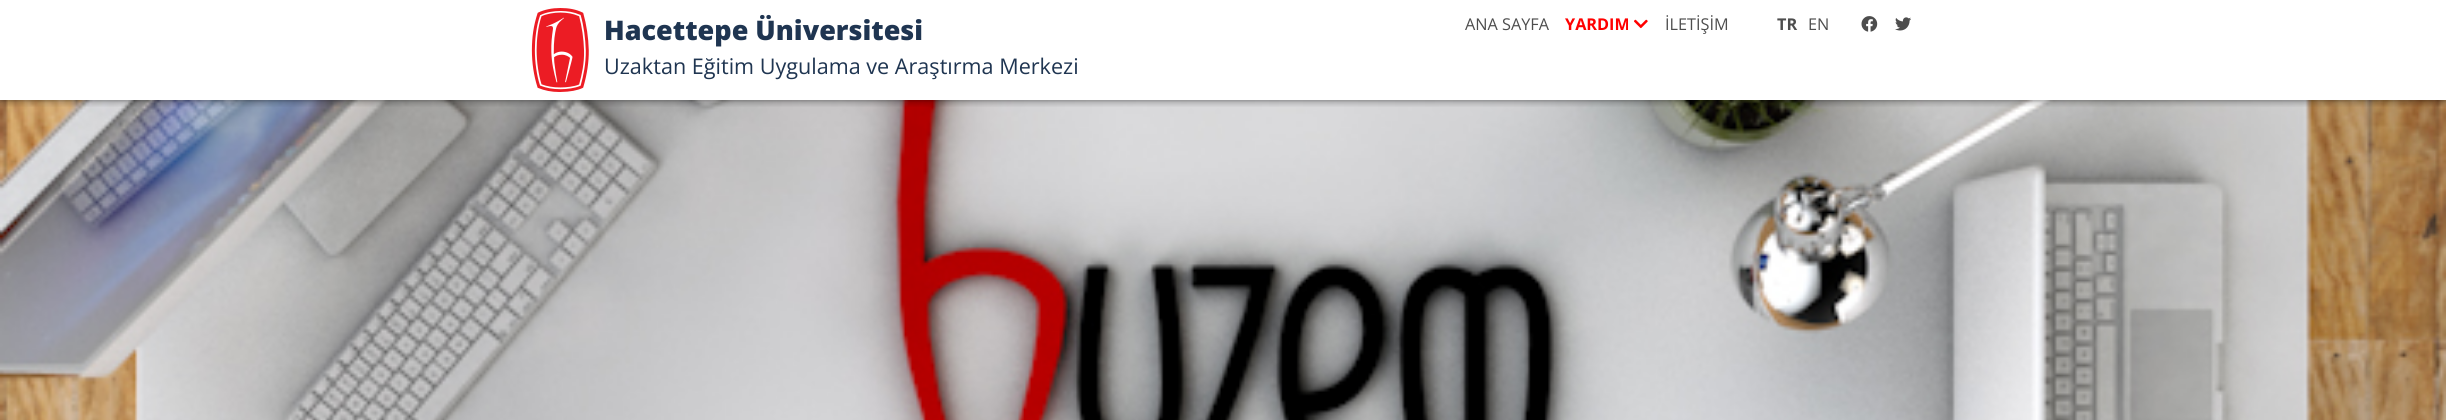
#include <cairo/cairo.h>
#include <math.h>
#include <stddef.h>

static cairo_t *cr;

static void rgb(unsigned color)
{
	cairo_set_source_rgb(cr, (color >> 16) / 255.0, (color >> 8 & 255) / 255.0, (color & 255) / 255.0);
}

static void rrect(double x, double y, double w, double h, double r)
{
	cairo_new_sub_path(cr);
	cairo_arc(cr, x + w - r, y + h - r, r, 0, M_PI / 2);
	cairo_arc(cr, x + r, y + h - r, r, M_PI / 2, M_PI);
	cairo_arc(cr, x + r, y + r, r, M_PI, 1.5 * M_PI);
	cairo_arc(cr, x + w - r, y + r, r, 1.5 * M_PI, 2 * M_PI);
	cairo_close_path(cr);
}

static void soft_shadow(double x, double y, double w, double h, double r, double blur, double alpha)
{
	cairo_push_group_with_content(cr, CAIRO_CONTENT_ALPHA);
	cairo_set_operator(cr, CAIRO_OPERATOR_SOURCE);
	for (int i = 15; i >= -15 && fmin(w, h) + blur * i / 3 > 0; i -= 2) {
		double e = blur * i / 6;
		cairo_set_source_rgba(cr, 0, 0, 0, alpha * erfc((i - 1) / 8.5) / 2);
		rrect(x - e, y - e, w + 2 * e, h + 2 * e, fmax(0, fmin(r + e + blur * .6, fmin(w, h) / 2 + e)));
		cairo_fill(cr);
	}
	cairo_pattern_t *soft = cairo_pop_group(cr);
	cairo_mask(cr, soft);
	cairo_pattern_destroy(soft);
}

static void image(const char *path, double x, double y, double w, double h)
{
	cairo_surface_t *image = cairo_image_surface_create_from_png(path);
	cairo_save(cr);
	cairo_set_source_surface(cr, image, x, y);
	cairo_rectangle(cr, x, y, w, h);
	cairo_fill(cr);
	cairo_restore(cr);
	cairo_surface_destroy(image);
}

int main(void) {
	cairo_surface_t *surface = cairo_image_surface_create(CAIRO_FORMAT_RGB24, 2446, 420);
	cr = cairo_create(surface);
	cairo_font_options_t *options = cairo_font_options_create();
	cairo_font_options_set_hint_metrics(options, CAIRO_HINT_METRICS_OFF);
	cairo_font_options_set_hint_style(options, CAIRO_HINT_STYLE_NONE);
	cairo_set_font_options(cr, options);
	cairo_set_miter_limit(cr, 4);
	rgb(0xffffff);
	cairo_paint(cr);
	image("img/5.png", 0, 100, 2446, 320);
	cairo_save(cr);
	cairo_rectangle(cr, 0, 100, 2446, 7);
	cairo_clip(cr);
	rgb(0x000000);
	soft_shadow(0, 0, 2446, 100, 0, 4, 0.6);
	cairo_restore(cr);
	image("img/1.png", 531, 8, 58, 84);
	image("img/2.png", 1634, 19, 14, 10);
	image("img/3.png", 1861, 16, 17, 16);
	image("img/4.png", 1895, 17, 16, 14);
	cairo_select_font_face(cr, "Open Sans ExtraBold", CAIRO_FONT_SLANT_NORMAL, CAIRO_FONT_WEIGHT_NORMAL);
	cairo_set_font_size(cr, 27);
	rgb(0x1f3551);
	cairo_move_to(cr, 604, 40);
	cairo_show_text(cr, "Hacettepe Üniversitesi");
	cairo_select_font_face(cr, "Open Sans", CAIRO_FONT_SLANT_NORMAL, CAIRO_FONT_WEIGHT_NORMAL);
	cairo_set_font_size(cr, 21.6);
	cairo_move_to(cr, 604, 74);
	cairo_show_text(cr, "Uzaktan Eğitim Uygulama ve Araştırma Merkezi");
	cairo_set_font_size(cr, 16.25);
	rgb(0x4d4d4d);
	cairo_move_to(cr, 1465, 30);
	cairo_show_text(cr, "ANA SAYFA");
	cairo_select_font_face(cr, "Open Sans", CAIRO_FONT_SLANT_NORMAL, CAIRO_FONT_WEIGHT_BOLD);
	rgb(0xff0000);
	cairo_move_to(cr, 1565, 30);
	cairo_show_text(cr, "YARDIM");
	cairo_select_font_face(cr, "Open Sans", CAIRO_FONT_SLANT_NORMAL, CAIRO_FONT_WEIGHT_NORMAL);
	rgb(0x4d4d4d);
	cairo_move_to(cr, 1665, 30);
	cairo_show_text(cr, "İLETİŞİM");
	cairo_select_font_face(cr, "Open Sans", CAIRO_FONT_SLANT_NORMAL, CAIRO_FONT_WEIGHT_BOLD);
	cairo_move_to(cr, 1777, 30);
	cairo_show_text(cr, "TR");
	cairo_select_font_face(cr, "Open Sans", CAIRO_FONT_SLANT_NORMAL, CAIRO_FONT_WEIGHT_NORMAL);
	cairo_move_to(cr, 1808, 30);
	cairo_show_text(cr, "EN");
	cairo_surface_write_to_png(surface, "page.png");
	cairo_font_options_destroy(options);
	cairo_destroy(cr);
	cairo_surface_destroy(surface);
	return 0;
}
